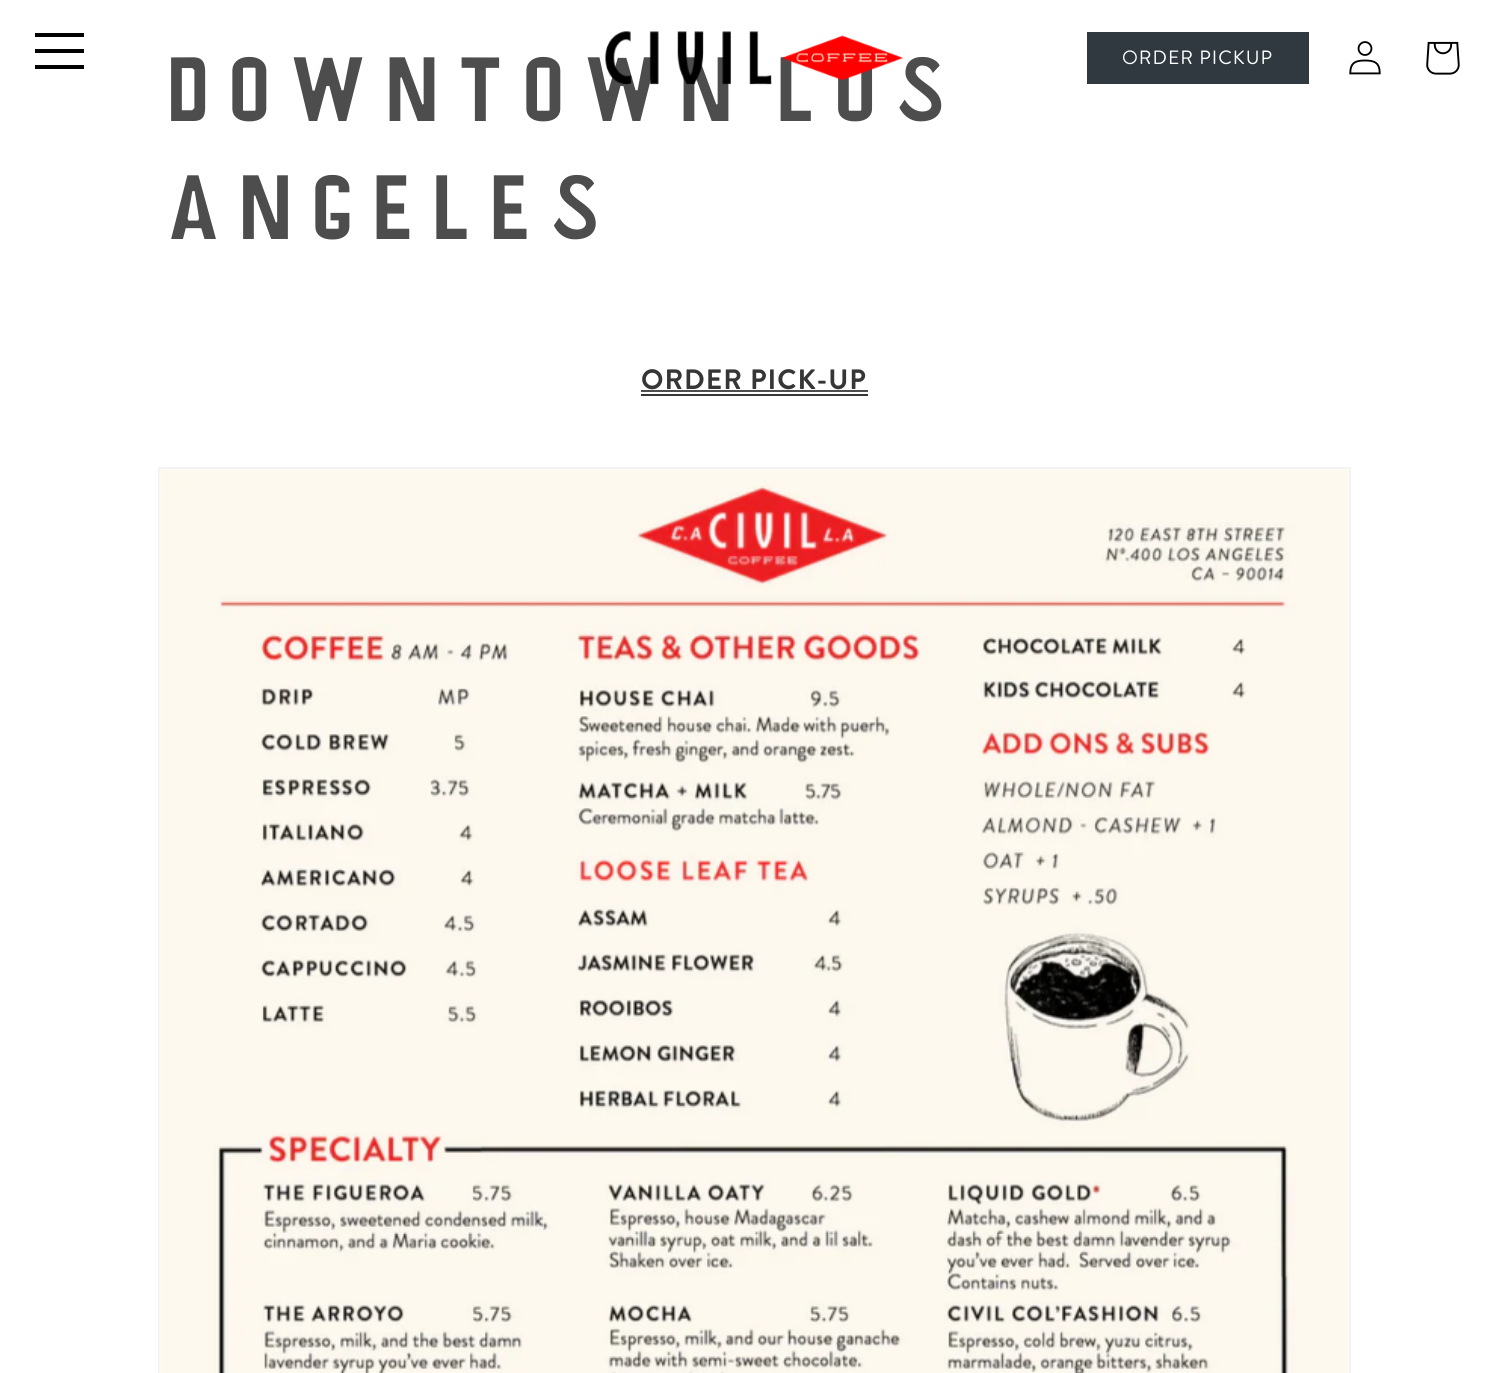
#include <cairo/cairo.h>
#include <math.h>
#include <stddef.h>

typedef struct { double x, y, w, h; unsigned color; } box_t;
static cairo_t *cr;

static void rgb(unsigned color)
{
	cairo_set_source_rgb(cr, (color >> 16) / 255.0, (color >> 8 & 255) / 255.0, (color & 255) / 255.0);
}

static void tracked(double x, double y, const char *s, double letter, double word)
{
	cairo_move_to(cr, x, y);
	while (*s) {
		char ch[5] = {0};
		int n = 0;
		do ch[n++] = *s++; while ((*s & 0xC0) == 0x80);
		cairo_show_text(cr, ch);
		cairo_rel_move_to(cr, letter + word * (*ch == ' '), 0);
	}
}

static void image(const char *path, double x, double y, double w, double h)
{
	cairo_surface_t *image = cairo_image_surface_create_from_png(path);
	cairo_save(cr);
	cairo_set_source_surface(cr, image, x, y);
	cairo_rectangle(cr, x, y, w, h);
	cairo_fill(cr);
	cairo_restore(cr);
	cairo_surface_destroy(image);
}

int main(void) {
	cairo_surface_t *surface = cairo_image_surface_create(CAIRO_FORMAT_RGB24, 1508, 1373);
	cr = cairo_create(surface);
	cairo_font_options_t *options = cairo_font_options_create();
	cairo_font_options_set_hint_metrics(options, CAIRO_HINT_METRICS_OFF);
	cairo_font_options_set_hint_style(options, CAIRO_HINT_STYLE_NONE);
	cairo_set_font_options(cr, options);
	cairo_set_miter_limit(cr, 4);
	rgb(0xffffff);
	cairo_paint(cr);
	rgb(0x363636);
	cairo_rectangle(cr, 641, 394, 227, 2);
	cairo_fill(cr);
	rgb(0x4d4d4d);
	cairo_rectangle(cr, 641, 390, 227, 2);
	cairo_fill(cr);
	cairo_rectangle(cr, 159, 468, 1191, 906);
	rgb(0xf3f3f3);
	cairo_stroke(cr);
	image("img/1.png", 159, 469, 1190, 904);
	{
		static const box_t items[] = {
			{35, 33, 49, 4, 0x000000},
			{35, 49, 49, 4, 0x000000},
			{35, 65, 49, 4, 0x000000},
			{1087, 32, 222, 52, 0x2f393f},
		};
		for (size_t i = 0; i < sizeof items / sizeof *items; i++) {
			rgb(items[i].color);
			cairo_rectangle(cr, items[i].x, items[i].y, items[i].w, items[i].h);
			cairo_fill(cr);
		}
	}
	image("img/3.png", 1349, 41, 32, 34);
	image("img/4.png", 1426, 41, 34, 34);
	cairo_select_font_face(cr, "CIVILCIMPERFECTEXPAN", CAIRO_FONT_SLANT_NORMAL, CAIRO_FONT_WEIGHT_NORMAL);
	cairo_set_font_size(cr, 91);
	rgb(0x4d4d4d);
	tracked(158, 121, "DOWNTOWN LOS", 1, 0);
	tracked(158, 239, "ANGELES", 1, 0);
	cairo_select_font_face(cr, "Brandon Grotesque", CAIRO_FONT_SLANT_NORMAL, CAIRO_FONT_WEIGHT_BOLD);
	cairo_set_font_size(cr, 28);
	rgb(0x363636);
	tracked(641, 389, "ORDER PICK-UP", 1, 0);
	image("img/2.png", 605, 31, 298, 54);
	cairo_select_font_face(cr, "Brandon Grotesque", CAIRO_FONT_SLANT_NORMAL, CAIRO_FONT_WEIGHT_NORMAL);
	cairo_set_font_size(cr, 19.25);
	rgb(0xffffff);
	tracked(1122, 64, "ORDER PICKUP", 1, 0);
	cairo_surface_write_to_png(surface, "page.png");
	cairo_font_options_destroy(options);
	cairo_destroy(cr);
	cairo_surface_destroy(surface);
	return 0;
}
